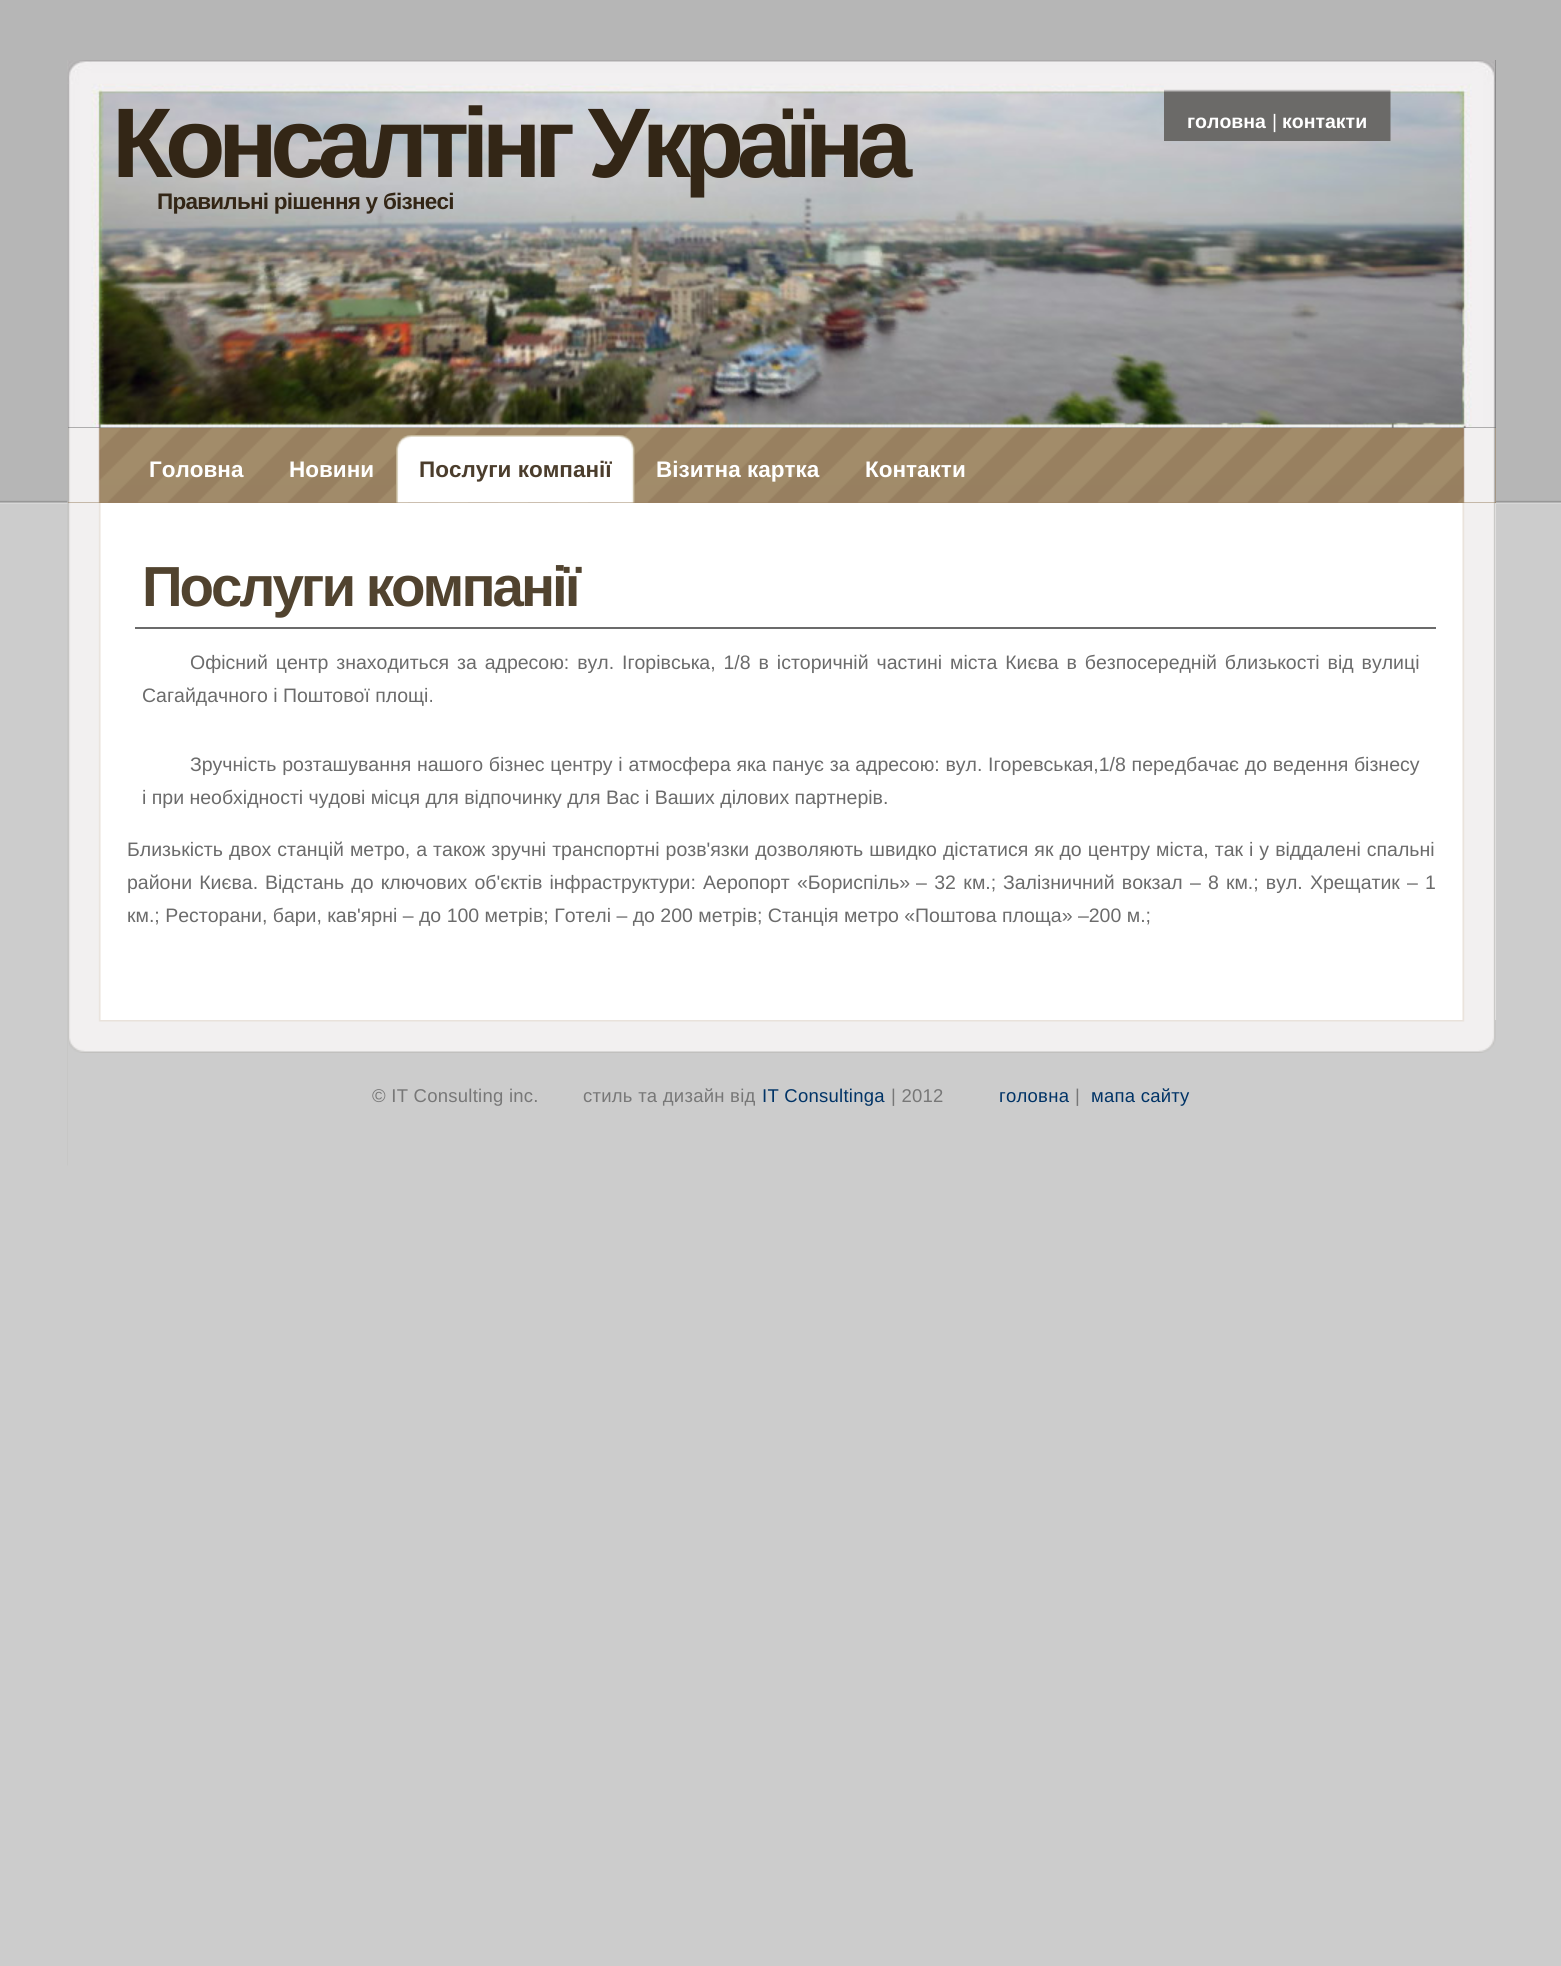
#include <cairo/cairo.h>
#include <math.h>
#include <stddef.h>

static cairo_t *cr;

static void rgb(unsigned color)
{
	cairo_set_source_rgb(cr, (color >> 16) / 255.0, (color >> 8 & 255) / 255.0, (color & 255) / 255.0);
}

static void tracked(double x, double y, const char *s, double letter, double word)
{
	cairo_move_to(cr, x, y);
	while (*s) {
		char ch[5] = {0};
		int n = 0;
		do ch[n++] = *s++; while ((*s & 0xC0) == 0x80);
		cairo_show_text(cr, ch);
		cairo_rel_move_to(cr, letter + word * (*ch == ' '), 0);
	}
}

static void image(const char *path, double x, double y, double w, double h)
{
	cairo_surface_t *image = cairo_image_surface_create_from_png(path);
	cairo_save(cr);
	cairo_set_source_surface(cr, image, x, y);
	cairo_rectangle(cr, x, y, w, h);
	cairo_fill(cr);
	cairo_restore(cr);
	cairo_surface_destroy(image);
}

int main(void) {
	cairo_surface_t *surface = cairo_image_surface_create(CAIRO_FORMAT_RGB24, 1561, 1966);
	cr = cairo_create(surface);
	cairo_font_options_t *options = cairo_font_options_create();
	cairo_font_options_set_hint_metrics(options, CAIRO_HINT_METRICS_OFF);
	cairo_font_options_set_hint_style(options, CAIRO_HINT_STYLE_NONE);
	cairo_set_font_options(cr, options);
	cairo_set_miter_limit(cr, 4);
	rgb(0xcccccc);
	cairo_paint(cr);
	image("img/1.png", 0, 0, 1561, 504);
	rgb(0xffffff);
	cairo_rectangle(cr, 1495, 503, 1, 517);
	cairo_fill(cr);
	image("img/2.png", 67, 60, 1429, 1106);
	rgb(0x988060);
	cairo_rectangle(cr, 68, 428, 1428, 75);
	cairo_fill(cr);
	image("img/5.png", 67, 427, 1429, 76);
	rgb(0x6b6b6b);
	cairo_rectangle(cr, 68, 60, 1428, 368);
	cairo_fill(cr);
	image("img/3.png", 67, 60, 1429, 368);
	image("img/4.png", 1164, 84, 227, 57);
	image("img/6.png", 396, 435, 15, 68);
	image("img/7.png", 411, 435, 224, 68);
	cairo_rectangle(cr, 135, 627, 1301, 2);
	cairo_fill(cr);
	rgb(0xcccccc);
	cairo_rectangle(cr, 68, 1020, 1428, 146);
	cairo_fill(cr);
	image("img/8.png", 68, 1020, 1428, 33);
	cairo_select_font_face(cr, "Liberation Sans", CAIRO_FONT_SLANT_NORMAL, CAIRO_FONT_WEIGHT_BOLD);
	cairo_set_font_size(cr, 99);
	rgb(0x332616);
	tracked(112, 177, "Консалтінг Україна", -7.5, 0);
	cairo_set_font_size(cr, 19.5);
	rgb(0xffffff);
	cairo_move_to(cr, 1187, 128);
	cairo_show_text(cr, "головна");
	cairo_select_font_face(cr, "Liberation Sans", CAIRO_FONT_SLANT_NORMAL, CAIRO_FONT_WEIGHT_NORMAL);
	cairo_move_to(cr, 1272, 128);
	cairo_show_text(cr, "|");
	cairo_select_font_face(cr, "Liberation Sans", CAIRO_FONT_SLANT_NORMAL, CAIRO_FONT_WEIGHT_BOLD);
	cairo_move_to(cr, 1282, 128);
	cairo_show_text(cr, "контакти");
	cairo_set_font_size(cr, 22.5);
	rgb(0x332616);
	tracked(157, 209, "Правильні рішення у бізнесі", -0.75, 0);
	rgb(0xffffff);
	cairo_move_to(cr, 149, 477);
	cairo_show_text(cr, "Головна");
	cairo_move_to(cr, 289, 477);
	cairo_show_text(cr, "Новини");
	rgb(0x4b3d2c);
	cairo_move_to(cr, 419, 477);
	cairo_show_text(cr, "Послуги компанії");
	rgb(0xffffff);
	cairo_move_to(cr, 656, 477);
	cairo_show_text(cr, "Візитна картка");
	cairo_move_to(cr, 865, 477);
	cairo_show_text(cr, "Контакти");
	cairo_set_font_size(cr, 56.5);
	rgb(0x51432f);
	tracked(142, 606, "Послуги компанії", -3, 0);
	cairo_select_font_face(cr, "Liberation Sans", CAIRO_FONT_SLANT_NORMAL, CAIRO_FONT_WEIGHT_NORMAL);
	cairo_set_font_size(cr, 19.5);
	rgb(0x6b6b6b);
	tracked(190, 669, "Офісний центр знаходиться за адресою: вул. Ігорівська, 1/8 в історичній частині міста Києва в безпосередній близькості від вулиці", 0, 2.5);
	cairo_move_to(cr, 142, 702);
	cairo_show_text(cr, "Cагайдачного і Поштової площі.");
	tracked(190, 771, "Зручність розташування нашого бізнес центру і атмосфера яка панує за адресою: вул. Ігоревськая,1/8 передбачає до ведення бізнесу", 0, 0.3);
	cairo_move_to(cr, 142, 804);
	cairo_show_text(cr, "і при необхідності чудові місця для відпочинку для Вас і Ваших ділових партнерів.");
	tracked(127, 856, "Близькість двох станцій метро, а також зручні транспортні розв'язки дозволяють швидко дістатися як до центру міста, так і у віддалені спальні", 0, 0.6);
	tracked(127, 889, "райони Києва.", 0, 1.75);
	tracked(265, 889, "Відстань до ключових об'єктів інфраструктури: Аеропорт «Бориспіль»", 0, 1.75);
	tracked(916, 889, "– 32 км.;", 0, 2);
	tracked(1003, 889, "Залізничний вокзал – 8 км.; вул. Хрещатик – 1", 0, 1.75);
	cairo_move_to(cr, 127, 922);
	cairo_show_text(cr, "км.; Ресторани, бари, кав'ярні – до 100 метрів; Готелі – до 200 метрів; Станція метро «Поштова площа» –200 м.;");
	cairo_set_font_size(cr, 18.5);
	rgb(0x777777);
	tracked(372, 1102, "© IT Consulting inc.", 0.25, 0);
	tracked(583, 1102, "стиль та дизайн від", 0.25, 0);
	rgb(0x003366);
	tracked(762, 1102, "IT Consultinga", 0.25, 0);
	rgb(0x777777);
	tracked(891, 1102, "| 2012", 0.25, 0);
	rgb(0x003366);
	tracked(999, 1102, "головна", 0.25, 0);
	rgb(0x777777);
	tracked(1075, 1102, "|", 0.25, 0);
	rgb(0x003366);
	tracked(1091, 1102, "мапа сайту", 0.25, 0);
	cairo_surface_write_to_png(surface, "page.png");
	cairo_font_options_destroy(options);
	cairo_destroy(cr);
	cairo_surface_destroy(surface);
	return 0;
}
